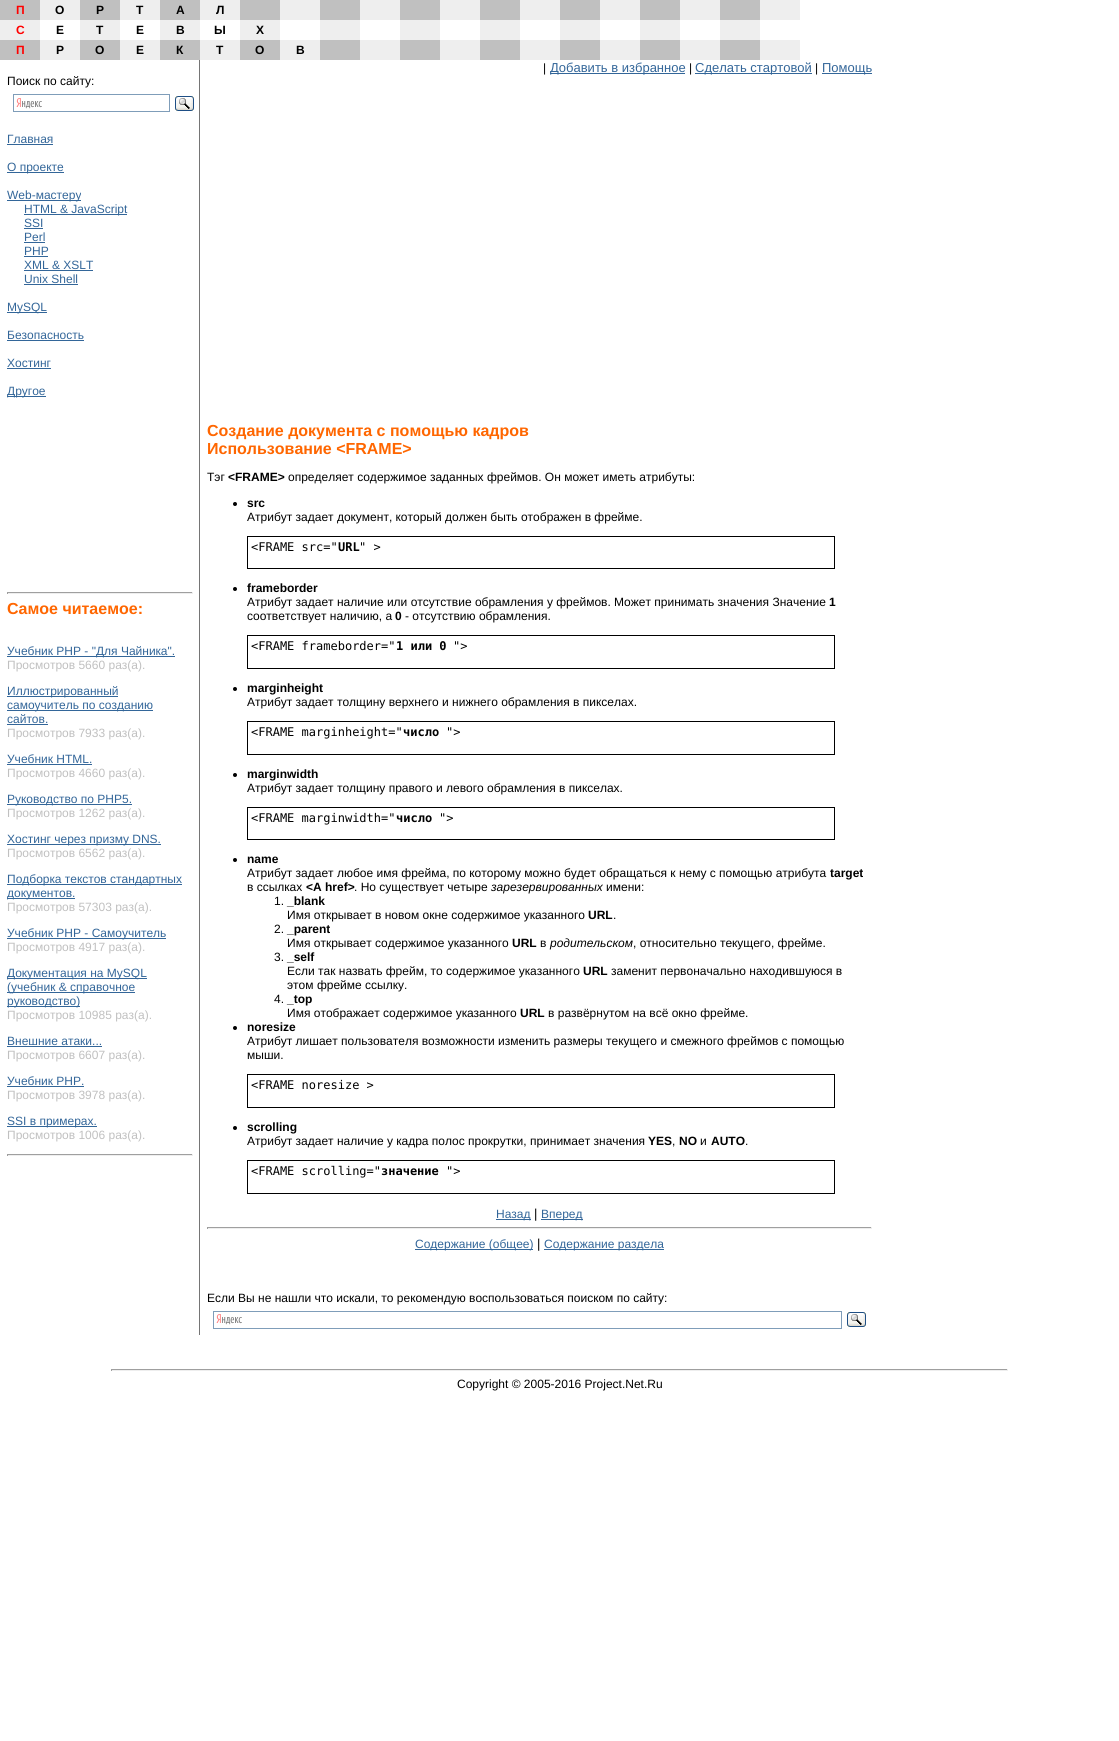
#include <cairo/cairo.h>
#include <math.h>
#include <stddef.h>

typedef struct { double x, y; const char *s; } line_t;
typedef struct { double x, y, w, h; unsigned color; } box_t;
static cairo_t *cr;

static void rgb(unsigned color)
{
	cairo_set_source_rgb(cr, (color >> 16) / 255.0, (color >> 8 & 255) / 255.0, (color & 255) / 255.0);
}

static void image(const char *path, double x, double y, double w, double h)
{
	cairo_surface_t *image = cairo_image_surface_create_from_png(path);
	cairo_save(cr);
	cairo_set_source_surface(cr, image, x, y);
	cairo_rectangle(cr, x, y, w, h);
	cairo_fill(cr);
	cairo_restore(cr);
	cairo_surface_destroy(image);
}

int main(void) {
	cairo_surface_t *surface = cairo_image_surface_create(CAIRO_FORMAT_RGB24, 1119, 1741);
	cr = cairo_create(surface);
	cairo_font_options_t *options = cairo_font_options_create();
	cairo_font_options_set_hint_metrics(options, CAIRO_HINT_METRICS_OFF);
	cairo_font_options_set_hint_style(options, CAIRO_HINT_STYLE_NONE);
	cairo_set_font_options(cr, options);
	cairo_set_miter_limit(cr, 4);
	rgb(0xffffff);
	cairo_paint(cr);
	{
		static const box_t items[] = {
			{40, 0, 760, 20, 0xeeeeee},
			{0, 0, 40, 20, 0xc0c0c0},
			{80, 0, 40, 20, 0xc0c0c0},
			{160, 0, 40, 20, 0xc0c0c0},
			{240, 0, 40, 20, 0xc0c0c0},
			{320, 0, 40, 20, 0xc0c0c0},
			{400, 0, 40, 20, 0xc0c0c0},
			{480, 0, 40, 20, 0xc0c0c0},
			{560, 0, 40, 20, 0xc0c0c0},
			{640, 0, 40, 20, 0xc0c0c0},
			{720, 0, 40, 20, 0xc0c0c0},
			{0, 20, 40, 20, 0xeeeeee},
			{80, 20, 40, 20, 0xeeeeee},
			{160, 20, 40, 20, 0xeeeeee},
			{240, 20, 40, 20, 0xeeeeee},
			{320, 20, 40, 20, 0xeeeeee},
			{400, 20, 40, 20, 0xeeeeee},
			{480, 20, 40, 20, 0xeeeeee},
			{560, 20, 40, 20, 0xeeeeee},
			{640, 20, 40, 20, 0xeeeeee},
			{720, 20, 40, 20, 0xeeeeee},
			{40, 40, 760, 20, 0xeeeeee},
			{0, 40, 40, 20, 0xc0c0c0},
			{80, 40, 40, 20, 0xc0c0c0},
			{160, 40, 40, 20, 0xc0c0c0},
			{240, 40, 40, 20, 0xc0c0c0},
			{320, 40, 40, 20, 0xc0c0c0},
			{400, 40, 40, 20, 0xc0c0c0},
			{480, 40, 40, 20, 0xc0c0c0},
			{560, 40, 40, 20, 0xc0c0c0},
			{640, 40, 40, 20, 0xc0c0c0},
			{720, 40, 40, 20, 0xc0c0c0},
			{199, 60, 1, 1275, 0x757575},
		};
		for (size_t i = 0; i < sizeof items / sizeof *items; i++) {
			rgb(items[i].color);
			cairo_rectangle(cr, items[i].x, items[i].y, items[i].w, items[i].h);
			cairo_fill(cr);
		}
	}
	image("img/1.png", 16, 98, 26, 11);
	cairo_rectangle(cr, 13.5, 94.5, 156, 17);
	rgb(0x7f9db9);
	cairo_set_line_width(cr, 1);
	cairo_stroke(cr);
	image("img/2.png", 175, 96, 19, 15);
	{
		static const box_t items[] = {
			{7, 144, 46, 1, 0x336699},
			{7, 172, 57, 1, 0x336699},
			{7, 200, 74, 1, 0x336699},
			{24, 214, 103, 1, 0x336699},
			{24, 228, 19, 1, 0x336699},
			{24, 242, 21, 1, 0x336699},
			{24, 256, 24, 1, 0x336699},
			{24, 270, 69, 1, 0x336699},
			{24, 284, 54, 1, 0x336699},
			{7, 312, 40, 1, 0x336699},
			{7, 340, 77, 1, 0x336699},
			{7, 368, 44, 1, 0x336699},
			{7, 396, 39, 1, 0x336699},
			{7, 592, 186, 1, 0x9f9f9f},
			{192, 592, 1, 2, 0xeeeeee},
			{7, 593, 186, 1, 0xeeeeee},
			{7, 592, 1, 2, 0x9f9f9f},
			{7, 656, 168, 1, 0x336699},
			{7, 696, 111, 1, 0x336699},
			{7, 710, 146, 1, 0x336699},
			{7, 724, 41, 1, 0x336699},
			{7, 764, 85, 1, 0x336699},
			{7, 804, 125, 1, 0x336699},
			{7, 844, 154, 1, 0x336699},
			{7, 884, 175, 1, 0x336699},
			{7, 898, 68, 1, 0x336699},
			{7, 938, 159, 1, 0x336699},
			{7, 978, 140, 1, 0x336699},
			{7, 992, 128, 1, 0x336699},
			{7, 1006, 73, 1, 0x336699},
			{7, 1046, 95, 1, 0x336699},
			{7, 1086, 77, 1, 0x336699},
			{7, 1126, 90, 1, 0x336699},
			{7, 1154, 186, 1, 0x9f9f9f},
			{192, 1154, 1, 2, 0xeeeeee},
			{7, 1155, 186, 1, 0xeeeeee},
			{7, 1154, 1, 2, 0x9f9f9f},
			{550, 73, 135, 1, 0x336699},
			{695, 73, 117, 1, 0x336699},
			{822, 73, 50, 1, 0x336699},
		};
		for (size_t i = 0; i < sizeof items / sizeof *items; i++) {
			rgb(items[i].color);
			cairo_rectangle(cr, items[i].x, items[i].y, items[i].w, items[i].h);
			cairo_fill(cr);
		}
	}
	rgb(0x000000);
	cairo_arc(cr, 235, 504, 2, 0, 2 * M_PI);
	cairo_fill(cr);
	cairo_rectangle(cr, 247.5, 536.5, 587, 32);
	cairo_stroke(cr);
	cairo_arc(cr, 235, 589, 2, 0, 2 * M_PI);
	cairo_fill(cr);
	cairo_rectangle(cr, 247.5, 635.5, 587, 33);
	cairo_stroke(cr);
	cairo_arc(cr, 235, 689, 2, 0, 2 * M_PI);
	cairo_fill(cr);
	cairo_rectangle(cr, 247.5, 721.5, 587, 33);
	cairo_stroke(cr);
	cairo_arc(cr, 235, 775, 2, 0, 2 * M_PI);
	cairo_fill(cr);
	cairo_rectangle(cr, 247.5, 807.5, 587, 32);
	cairo_stroke(cr);
	cairo_arc(cr, 235, 860, 2, 0, 2 * M_PI);
	cairo_fill(cr);
	cairo_arc(cr, 235, 1028, 2, 0, 2 * M_PI);
	cairo_fill(cr);
	cairo_rectangle(cr, 247.5, 1074.5, 587, 33);
	cairo_stroke(cr);
	cairo_arc(cr, 235, 1128, 2, 0, 2 * M_PI);
	cairo_fill(cr);
	cairo_rectangle(cr, 247.5, 1160.5, 587, 33);
	cairo_stroke(cr);
	{
		static const box_t items[] = {
			{496, 1219, 35, 1, 0x336699},
			{541, 1219, 42, 1, 0x336699},
			{207, 1227, 665, 1, 0x9f9f9f},
			{871, 1227, 1, 2, 0xeeeeee},
			{207, 1228, 665, 1, 0xeeeeee},
			{207, 1227, 1, 2, 0x9f9f9f},
			{415, 1249, 118, 1, 0x336699},
			{544, 1249, 120, 1, 0x336699},
		};
		for (size_t i = 0; i < sizeof items / sizeof *items; i++) {
			rgb(items[i].color);
			cairo_rectangle(cr, items[i].x, items[i].y, items[i].w, items[i].h);
			cairo_fill(cr);
		}
	}
	image("img/1.png", 216, 1314, 26, 11);
	cairo_rectangle(cr, 213.5, 1311.5, 628, 17);
	rgb(0x7f9db9);
	cairo_stroke(cr);
	image("img/2.png", 847, 1312, 19, 15);
	{
		static const box_t items[] = {
			{111, 1369, 897, 1, 0x9f9f9f},
			{1007, 1369, 1, 2, 0xeeeeee},
			{111, 1370, 897, 1, 0xeeeeee},
			{111, 1369, 1, 2, 0x9f9f9f},
		};
		for (size_t i = 0; i < sizeof items / sizeof *items; i++) {
			rgb(items[i].color);
			cairo_rectangle(cr, items[i].x, items[i].y, items[i].w, items[i].h);
			cairo_fill(cr);
		}
	}
	cairo_select_font_face(cr, "Liberation Sans", CAIRO_FONT_SLANT_NORMAL, CAIRO_FONT_WEIGHT_BOLD);
	cairo_set_font_size(cr, 12);
	rgb(0xff0000);
	cairo_move_to(cr, 16, 14);
	cairo_show_text(cr, "П");
	rgb(0x000000);
	{
		static const line_t items[] = {
			{55, 14, "О"},
			{96, 14, "Р"},
			{136, 14, "Т"},
			{176, 14, "А"},
			{216, 14, "Л"},
		};
		for (size_t i = 0; i < sizeof items / sizeof *items; i++) {
			cairo_move_to(cr, items[i].x, items[i].y);
			cairo_show_text(cr, items[i].s);
		}
	}
	rgb(0xff0000);
	cairo_move_to(cr, 16, 34);
	cairo_show_text(cr, "С");
	rgb(0x000000);
	{
		static const line_t items[] = {
			{56, 34, "Е"},
			{96, 34, "Т"},
			{136, 34, "Е"},
			{176, 34, "В"},
			{214, 34, "Ы"},
			{256, 34, "Х"},
		};
		for (size_t i = 0; i < sizeof items / sizeof *items; i++) {
			cairo_move_to(cr, items[i].x, items[i].y);
			cairo_show_text(cr, items[i].s);
		}
	}
	rgb(0xff0000);
	cairo_move_to(cr, 16, 54);
	cairo_show_text(cr, "П");
	rgb(0x000000);
	{
		static const line_t items[] = {
			{56, 54, "Р"},
			{95, 54, "О"},
			{136, 54, "Е"},
			{176, 54, "К"},
			{216, 54, "Т"},
			{255, 54, "О"},
			{296, 54, "В"},
		};
		for (size_t i = 0; i < sizeof items / sizeof *items; i++) {
			cairo_move_to(cr, items[i].x, items[i].y);
			cairo_show_text(cr, items[i].s);
		}
	}
	cairo_select_font_face(cr, "Liberation Sans", CAIRO_FONT_SLANT_NORMAL, CAIRO_FONT_WEIGHT_NORMAL);
	cairo_move_to(cr, 7, 85);
	cairo_show_text(cr, "Поиск по сайту:");
	rgb(0x336699);
	{
		static const line_t items[] = {
			{7, 143, "Главная"},
			{7, 171, "О проекте"},
			{7, 199, "Web-мастеру"},
			{24, 213, "HTML & JavaScript"},
			{24, 227, "SSI"},
			{24, 241, "Perl"},
			{24, 255, "PHP"},
			{24, 269, "XML & XSLT"},
			{24, 283, "Unix Shell"},
			{7, 311, "MySQL"},
			{7, 339, "Безопасность"},
			{7, 367, "Хостинг"},
			{7, 395, "Другое"},
		};
		for (size_t i = 0; i < sizeof items / sizeof *items; i++) {
			cairo_move_to(cr, items[i].x, items[i].y);
			cairo_show_text(cr, items[i].s);
		}
	}
	cairo_select_font_face(cr, "Liberation Sans", CAIRO_FONT_SLANT_NORMAL, CAIRO_FONT_WEIGHT_BOLD);
	cairo_set_font_size(cr, 16);
	rgb(0xff6600);
	cairo_move_to(cr, 7, 614);
	cairo_show_text(cr, "Самое читаемое:");
	cairo_select_font_face(cr, "Liberation Sans", CAIRO_FONT_SLANT_NORMAL, CAIRO_FONT_WEIGHT_NORMAL);
	cairo_set_font_size(cr, 12);
	rgb(0x336699);
	cairo_move_to(cr, 7, 655);
	cairo_show_text(cr, "Учебник PHP - \"Для Чайника\".");
	rgb(0xc0c0c0);
	cairo_move_to(cr, 7, 669);
	cairo_show_text(cr, "Просмотров 5660 раз(а).");
	rgb(0x336699);
	{
		static const line_t items[] = {
			{7, 695, "Иллюстрированный"},
			{7, 709, "самоучитель по созданию"},
			{7, 723, "сайтов."},
		};
		for (size_t i = 0; i < sizeof items / sizeof *items; i++) {
			cairo_move_to(cr, items[i].x, items[i].y);
			cairo_show_text(cr, items[i].s);
		}
	}
	rgb(0xc0c0c0);
	cairo_move_to(cr, 7, 737);
	cairo_show_text(cr, "Просмотров 7933 раз(а).");
	rgb(0x336699);
	cairo_move_to(cr, 7, 763);
	cairo_show_text(cr, "Учебник HTML.");
	rgb(0xc0c0c0);
	cairo_move_to(cr, 7, 777);
	cairo_show_text(cr, "Просмотров 4660 раз(а).");
	rgb(0x336699);
	cairo_move_to(cr, 7, 803);
	cairo_show_text(cr, "Руководство по PHP5.");
	rgb(0xc0c0c0);
	cairo_move_to(cr, 7, 817);
	cairo_show_text(cr, "Просмотров 1262 раз(а).");
	rgb(0x336699);
	cairo_move_to(cr, 7, 843);
	cairo_show_text(cr, "Хостинг через призму DNS.");
	rgb(0xc0c0c0);
	cairo_move_to(cr, 7, 857);
	cairo_show_text(cr, "Просмотров 6562 раз(а).");
	rgb(0x336699);
	cairo_move_to(cr, 7, 883);
	cairo_show_text(cr, "Подборка текстов стандартных");
	cairo_move_to(cr, 7, 897);
	cairo_show_text(cr, "документов.");
	rgb(0xc0c0c0);
	cairo_move_to(cr, 7, 911);
	cairo_show_text(cr, "Просмотров 57303 раз(а).");
	rgb(0x336699);
	cairo_move_to(cr, 7, 937);
	cairo_show_text(cr, "Учебник PHP - Самоучитель");
	rgb(0xc0c0c0);
	cairo_move_to(cr, 7, 951);
	cairo_show_text(cr, "Просмотров 4917 раз(а).");
	rgb(0x336699);
	{
		static const line_t items[] = {
			{7, 977, "Документация на MySQL"},
			{7, 991, "(учебник & справочное"},
			{7, 1005, "руководство)"},
		};
		for (size_t i = 0; i < sizeof items / sizeof *items; i++) {
			cairo_move_to(cr, items[i].x, items[i].y);
			cairo_show_text(cr, items[i].s);
		}
	}
	rgb(0xc0c0c0);
	cairo_move_to(cr, 7, 1019);
	cairo_show_text(cr, "Просмотров 10985 раз(а).");
	rgb(0x336699);
	cairo_move_to(cr, 7, 1045);
	cairo_show_text(cr, "Внешние атаки...");
	rgb(0xc0c0c0);
	cairo_move_to(cr, 7, 1059);
	cairo_show_text(cr, "Просмотров 6607 раз(а).");
	rgb(0x336699);
	cairo_move_to(cr, 7, 1085);
	cairo_show_text(cr, "Учебник PHP.");
	rgb(0xc0c0c0);
	cairo_move_to(cr, 7, 1099);
	cairo_show_text(cr, "Просмотров 3978 раз(а).");
	rgb(0x336699);
	cairo_move_to(cr, 7, 1125);
	cairo_show_text(cr, "SSI в примерах.");
	rgb(0xc0c0c0);
	cairo_move_to(cr, 7, 1139);
	cairo_show_text(cr, "Просмотров 1006 раз(а).");
	rgb(0x000000);
	cairo_move_to(cr, 543, 72);
	cairo_show_text(cr, "|");
	cairo_set_font_size(cr, 13);
	rgb(0x336699);
	cairo_move_to(cr, 550, 72);
	cairo_show_text(cr, "Добавить в избранное");
	cairo_set_font_size(cr, 12);
	rgb(0x000000);
	cairo_move_to(cr, 689, 72);
	cairo_show_text(cr, "|");
	cairo_set_font_size(cr, 13);
	rgb(0x336699);
	cairo_move_to(cr, 695, 72);
	cairo_show_text(cr, "Сделать стартовой");
	cairo_set_font_size(cr, 12);
	rgb(0x000000);
	cairo_move_to(cr, 815, 72);
	cairo_show_text(cr, "|");
	cairo_set_font_size(cr, 13);
	rgb(0x336699);
	cairo_move_to(cr, 822, 72);
	cairo_show_text(cr, "Помощь");
	cairo_select_font_face(cr, "Liberation Sans", CAIRO_FONT_SLANT_NORMAL, CAIRO_FONT_WEIGHT_BOLD);
	cairo_set_font_size(cr, 16);
	rgb(0xff6600);
	cairo_move_to(cr, 207, 436);
	cairo_show_text(cr, "Создание документа с помощью кадров");
	cairo_move_to(cr, 207, 454);
	cairo_show_text(cr, "Использование <FRAME>");
	cairo_select_font_face(cr, "Liberation Sans", CAIRO_FONT_SLANT_NORMAL, CAIRO_FONT_WEIGHT_NORMAL);
	cairo_set_font_size(cr, 12);
	rgb(0x000000);
	cairo_move_to(cr, 207, 481);
	cairo_show_text(cr, "Тэг");
	cairo_select_font_face(cr, "Liberation Sans", CAIRO_FONT_SLANT_NORMAL, CAIRO_FONT_WEIGHT_BOLD);
	cairo_move_to(cr, 228, 481);
	cairo_show_text(cr, "<FRAME>");
	cairo_select_font_face(cr, "Liberation Sans", CAIRO_FONT_SLANT_NORMAL, CAIRO_FONT_WEIGHT_NORMAL);
	cairo_move_to(cr, 288, 481);
	cairo_show_text(cr, "определяет содержимое заданных фреймов. Он может иметь атрибуты:");
	cairo_select_font_face(cr, "Liberation Sans", CAIRO_FONT_SLANT_NORMAL, CAIRO_FONT_WEIGHT_BOLD);
	cairo_move_to(cr, 247, 507);
	cairo_show_text(cr, "src");
	cairo_select_font_face(cr, "Liberation Sans", CAIRO_FONT_SLANT_NORMAL, CAIRO_FONT_WEIGHT_NORMAL);
	cairo_move_to(cr, 247, 521);
	cairo_show_text(cr, "Атрибут задает документ, который должен быть отображен в фрейме.");
	cairo_select_font_face(cr, "DejaVu Sans Mono", CAIRO_FONT_SLANT_NORMAL, CAIRO_FONT_WEIGHT_NORMAL);
	cairo_move_to(cr, 251, 551);
	cairo_show_text(cr, "<FRAME src=\"");
	cairo_select_font_face(cr, "DejaVu Sans Mono", CAIRO_FONT_SLANT_NORMAL, CAIRO_FONT_WEIGHT_BOLD);
	cairo_move_to(cr, 338, 551);
	cairo_show_text(cr, "URL");
	cairo_select_font_face(cr, "DejaVu Sans Mono", CAIRO_FONT_SLANT_NORMAL, CAIRO_FONT_WEIGHT_NORMAL);
	cairo_move_to(cr, 359, 551);
	cairo_show_text(cr, "\" >");
	cairo_select_font_face(cr, "Liberation Sans", CAIRO_FONT_SLANT_NORMAL, CAIRO_FONT_WEIGHT_BOLD);
	cairo_move_to(cr, 247, 592);
	cairo_show_text(cr, "frameborder");
	cairo_select_font_face(cr, "Liberation Sans", CAIRO_FONT_SLANT_NORMAL, CAIRO_FONT_WEIGHT_NORMAL);
	cairo_move_to(cr, 247, 606);
	cairo_show_text(cr, "Атрибут задает наличие или отсутствие обрамления у фреймов. Может принимать значения Значение");
	cairo_select_font_face(cr, "Liberation Sans", CAIRO_FONT_SLANT_NORMAL, CAIRO_FONT_WEIGHT_BOLD);
	cairo_move_to(cr, 829, 606);
	cairo_show_text(cr, "1");
	cairo_select_font_face(cr, "Liberation Sans", CAIRO_FONT_SLANT_NORMAL, CAIRO_FONT_WEIGHT_NORMAL);
	cairo_move_to(cr, 247, 620);
	cairo_show_text(cr, "соответствует наличию, а");
	cairo_select_font_face(cr, "Liberation Sans", CAIRO_FONT_SLANT_NORMAL, CAIRO_FONT_WEIGHT_BOLD);
	cairo_move_to(cr, 395, 620);
	cairo_show_text(cr, "0");
	cairo_select_font_face(cr, "Liberation Sans", CAIRO_FONT_SLANT_NORMAL, CAIRO_FONT_WEIGHT_NORMAL);
	cairo_move_to(cr, 405, 620);
	cairo_show_text(cr, "- отсутствию обрамления.");
	cairo_select_font_face(cr, "DejaVu Sans Mono", CAIRO_FONT_SLANT_NORMAL, CAIRO_FONT_WEIGHT_NORMAL);
	cairo_move_to(cr, 251, 650);
	cairo_show_text(cr, "<FRAME frameborder=\"");
	cairo_select_font_face(cr, "DejaVu Sans Mono", CAIRO_FONT_SLANT_NORMAL, CAIRO_FONT_WEIGHT_BOLD);
	cairo_move_to(cr, 396, 650);
	cairo_show_text(cr, "1 или 0");
	cairo_select_font_face(cr, "DejaVu Sans Mono", CAIRO_FONT_SLANT_NORMAL, CAIRO_FONT_WEIGHT_NORMAL);
	cairo_move_to(cr, 453, 650);
	cairo_show_text(cr, "\">");
	cairo_select_font_face(cr, "Liberation Sans", CAIRO_FONT_SLANT_NORMAL, CAIRO_FONT_WEIGHT_BOLD);
	cairo_move_to(cr, 247, 692);
	cairo_show_text(cr, "marginheight");
	cairo_select_font_face(cr, "Liberation Sans", CAIRO_FONT_SLANT_NORMAL, CAIRO_FONT_WEIGHT_NORMAL);
	cairo_move_to(cr, 247, 706);
	cairo_show_text(cr, "Атрибут задает толщину верхнего и нижнего обрамления в пикселах.");
	cairo_select_font_face(cr, "DejaVu Sans Mono", CAIRO_FONT_SLANT_NORMAL, CAIRO_FONT_WEIGHT_NORMAL);
	cairo_move_to(cr, 251, 736);
	cairo_show_text(cr, "<FRAME marginheight=\"");
	cairo_select_font_face(cr, "DejaVu Sans Mono", CAIRO_FONT_SLANT_NORMAL, CAIRO_FONT_WEIGHT_BOLD);
	cairo_move_to(cr, 403, 736);
	cairo_show_text(cr, "число");
	cairo_select_font_face(cr, "DejaVu Sans Mono", CAIRO_FONT_SLANT_NORMAL, CAIRO_FONT_WEIGHT_NORMAL);
	cairo_move_to(cr, 446, 736);
	cairo_show_text(cr, "\">");
	cairo_select_font_face(cr, "Liberation Sans", CAIRO_FONT_SLANT_NORMAL, CAIRO_FONT_WEIGHT_BOLD);
	cairo_move_to(cr, 247, 778);
	cairo_show_text(cr, "marginwidth");
	cairo_select_font_face(cr, "Liberation Sans", CAIRO_FONT_SLANT_NORMAL, CAIRO_FONT_WEIGHT_NORMAL);
	cairo_move_to(cr, 247, 792);
	cairo_show_text(cr, "Атрибут задает толщину правого и левого обрамления в пикселах.");
	cairo_select_font_face(cr, "DejaVu Sans Mono", CAIRO_FONT_SLANT_NORMAL, CAIRO_FONT_WEIGHT_NORMAL);
	cairo_move_to(cr, 251, 822);
	cairo_show_text(cr, "<FRAME marginwidth=\"");
	cairo_select_font_face(cr, "DejaVu Sans Mono", CAIRO_FONT_SLANT_NORMAL, CAIRO_FONT_WEIGHT_BOLD);
	cairo_move_to(cr, 396, 822);
	cairo_show_text(cr, "число");
	cairo_select_font_face(cr, "DejaVu Sans Mono", CAIRO_FONT_SLANT_NORMAL, CAIRO_FONT_WEIGHT_NORMAL);
	cairo_move_to(cr, 439, 822);
	cairo_show_text(cr, "\">");
	cairo_select_font_face(cr, "Liberation Sans", CAIRO_FONT_SLANT_NORMAL, CAIRO_FONT_WEIGHT_BOLD);
	cairo_move_to(cr, 247, 863);
	cairo_show_text(cr, "name");
	cairo_select_font_face(cr, "Liberation Sans", CAIRO_FONT_SLANT_NORMAL, CAIRO_FONT_WEIGHT_NORMAL);
	cairo_move_to(cr, 247, 877);
	cairo_show_text(cr, "Атрибут задает любое имя фрейма, по которому можно будет обращаться к нему с помощью атрибута");
	cairo_select_font_face(cr, "Liberation Sans", CAIRO_FONT_SLANT_NORMAL, CAIRO_FONT_WEIGHT_BOLD);
	cairo_move_to(cr, 830, 877);
	cairo_show_text(cr, "target");
	cairo_select_font_face(cr, "Liberation Sans", CAIRO_FONT_SLANT_NORMAL, CAIRO_FONT_WEIGHT_NORMAL);
	cairo_move_to(cr, 247, 891);
	cairo_show_text(cr, "в ссылках");
	cairo_select_font_face(cr, "Liberation Sans", CAIRO_FONT_SLANT_NORMAL, CAIRO_FONT_WEIGHT_BOLD);
	cairo_move_to(cr, 306, 891);
	cairo_show_text(cr, "<A href>");
	cairo_select_font_face(cr, "Liberation Sans", CAIRO_FONT_SLANT_NORMAL, CAIRO_FONT_WEIGHT_NORMAL);
	cairo_move_to(cr, 354, 891);
	cairo_show_text(cr, ". Но существует четыре");
	cairo_select_font_face(cr, "Liberation Sans", CAIRO_FONT_SLANT_ITALIC, CAIRO_FONT_WEIGHT_NORMAL);
	cairo_move_to(cr, 491, 891);
	cairo_show_text(cr, "зарезервированных");
	cairo_select_font_face(cr, "Liberation Sans", CAIRO_FONT_SLANT_NORMAL, CAIRO_FONT_WEIGHT_NORMAL);
	cairo_move_to(cr, 606, 891);
	cairo_show_text(cr, "имени:");
	cairo_move_to(cr, 274, 905);
	cairo_show_text(cr, "1.");
	cairo_select_font_face(cr, "Liberation Sans", CAIRO_FONT_SLANT_NORMAL, CAIRO_FONT_WEIGHT_BOLD);
	cairo_move_to(cr, 287, 905);
	cairo_show_text(cr, "_blank");
	cairo_select_font_face(cr, "Liberation Sans", CAIRO_FONT_SLANT_NORMAL, CAIRO_FONT_WEIGHT_NORMAL);
	cairo_move_to(cr, 287, 919);
	cairo_show_text(cr, "Имя открывает в новом окне содержимое указанного");
	cairo_select_font_face(cr, "Liberation Sans", CAIRO_FONT_SLANT_NORMAL, CAIRO_FONT_WEIGHT_BOLD);
	cairo_move_to(cr, 588, 919);
	cairo_show_text(cr, "URL");
	cairo_select_font_face(cr, "Liberation Sans", CAIRO_FONT_SLANT_NORMAL, CAIRO_FONT_WEIGHT_NORMAL);
	cairo_move_to(cr, 613, 919);
	cairo_show_text(cr, ".");
	cairo_move_to(cr, 274, 933);
	cairo_show_text(cr, "2.");
	cairo_select_font_face(cr, "Liberation Sans", CAIRO_FONT_SLANT_NORMAL, CAIRO_FONT_WEIGHT_BOLD);
	cairo_move_to(cr, 287, 933);
	cairo_show_text(cr, "_parent");
	cairo_select_font_face(cr, "Liberation Sans", CAIRO_FONT_SLANT_NORMAL, CAIRO_FONT_WEIGHT_NORMAL);
	cairo_move_to(cr, 287, 947);
	cairo_show_text(cr, "Имя открывает содержимое указанного");
	cairo_select_font_face(cr, "Liberation Sans", CAIRO_FONT_SLANT_NORMAL, CAIRO_FONT_WEIGHT_BOLD);
	cairo_move_to(cr, 512, 947);
	cairo_show_text(cr, "URL");
	cairo_select_font_face(cr, "Liberation Sans", CAIRO_FONT_SLANT_NORMAL, CAIRO_FONT_WEIGHT_NORMAL);
	cairo_move_to(cr, 540, 947);
	cairo_show_text(cr, "в");
	cairo_select_font_face(cr, "Liberation Sans", CAIRO_FONT_SLANT_ITALIC, CAIRO_FONT_WEIGHT_NORMAL);
	cairo_move_to(cr, 550, 947);
	cairo_show_text(cr, "родительском");
	cairo_select_font_face(cr, "Liberation Sans", CAIRO_FONT_SLANT_NORMAL, CAIRO_FONT_WEIGHT_NORMAL);
	cairo_move_to(cr, 633, 947);
	cairo_show_text(cr, ", относительно текущего, фрейме.");
	cairo_move_to(cr, 274, 961);
	cairo_show_text(cr, "3.");
	cairo_select_font_face(cr, "Liberation Sans", CAIRO_FONT_SLANT_NORMAL, CAIRO_FONT_WEIGHT_BOLD);
	cairo_move_to(cr, 287, 961);
	cairo_show_text(cr, "_self");
	cairo_select_font_face(cr, "Liberation Sans", CAIRO_FONT_SLANT_NORMAL, CAIRO_FONT_WEIGHT_NORMAL);
	cairo_move_to(cr, 287, 975);
	cairo_show_text(cr, "Если так назвать фрейм, то содержимое указанного");
	cairo_select_font_face(cr, "Liberation Sans", CAIRO_FONT_SLANT_NORMAL, CAIRO_FONT_WEIGHT_BOLD);
	cairo_move_to(cr, 583, 975);
	cairo_show_text(cr, "URL");
	cairo_select_font_face(cr, "Liberation Sans", CAIRO_FONT_SLANT_NORMAL, CAIRO_FONT_WEIGHT_NORMAL);
	{
		static const line_t items[] = {
			{611, 975, "заменит первоначально находившуюся в"},
			{287, 989, "этом фрейме ссылку."},
			{274, 1003, "4."},
		};
		for (size_t i = 0; i < sizeof items / sizeof *items; i++) {
			cairo_move_to(cr, items[i].x, items[i].y);
			cairo_show_text(cr, items[i].s);
		}
	}
	cairo_select_font_face(cr, "Liberation Sans", CAIRO_FONT_SLANT_NORMAL, CAIRO_FONT_WEIGHT_BOLD);
	cairo_move_to(cr, 287, 1003);
	cairo_show_text(cr, "_top");
	cairo_select_font_face(cr, "Liberation Sans", CAIRO_FONT_SLANT_NORMAL, CAIRO_FONT_WEIGHT_NORMAL);
	cairo_move_to(cr, 287, 1017);
	cairo_show_text(cr, "Имя отображает содержимое указанного");
	cairo_select_font_face(cr, "Liberation Sans", CAIRO_FONT_SLANT_NORMAL, CAIRO_FONT_WEIGHT_BOLD);
	cairo_move_to(cr, 520, 1017);
	cairo_show_text(cr, "URL");
	cairo_select_font_face(cr, "Liberation Sans", CAIRO_FONT_SLANT_NORMAL, CAIRO_FONT_WEIGHT_NORMAL);
	cairo_move_to(cr, 548, 1017);
	cairo_show_text(cr, "в развёрнутом на всё окно фрейме.");
	cairo_select_font_face(cr, "Liberation Sans", CAIRO_FONT_SLANT_NORMAL, CAIRO_FONT_WEIGHT_BOLD);
	cairo_move_to(cr, 247, 1031);
	cairo_show_text(cr, "noresize");
	cairo_select_font_face(cr, "Liberation Sans", CAIRO_FONT_SLANT_NORMAL, CAIRO_FONT_WEIGHT_NORMAL);
	cairo_move_to(cr, 247, 1045);
	cairo_show_text(cr, "Атрибут лишает пользователя возможности изменить размеры текущего и смежного фреймов с помощью");
	cairo_move_to(cr, 247, 1059);
	cairo_show_text(cr, "мыши.");
	cairo_select_font_face(cr, "DejaVu Sans Mono", CAIRO_FONT_SLANT_NORMAL, CAIRO_FONT_WEIGHT_NORMAL);
	cairo_move_to(cr, 251, 1089);
	cairo_show_text(cr, "<FRAME noresize >");
	cairo_select_font_face(cr, "Liberation Sans", CAIRO_FONT_SLANT_NORMAL, CAIRO_FONT_WEIGHT_BOLD);
	cairo_move_to(cr, 247, 1131);
	cairo_show_text(cr, "scrolling");
	cairo_select_font_face(cr, "Liberation Sans", CAIRO_FONT_SLANT_NORMAL, CAIRO_FONT_WEIGHT_NORMAL);
	cairo_move_to(cr, 247, 1145);
	cairo_show_text(cr, "Атрибут задает наличие у кадра полос прокрутки, принимает значения");
	cairo_select_font_face(cr, "Liberation Sans", CAIRO_FONT_SLANT_NORMAL, CAIRO_FONT_WEIGHT_BOLD);
	cairo_move_to(cr, 648, 1145);
	cairo_show_text(cr, "YES");
	cairo_select_font_face(cr, "Liberation Sans", CAIRO_FONT_SLANT_NORMAL, CAIRO_FONT_WEIGHT_NORMAL);
	cairo_move_to(cr, 672, 1145);
	cairo_show_text(cr, ",");
	cairo_select_font_face(cr, "Liberation Sans", CAIRO_FONT_SLANT_NORMAL, CAIRO_FONT_WEIGHT_BOLD);
	cairo_move_to(cr, 679, 1145);
	cairo_show_text(cr, "NO");
	cairo_select_font_face(cr, "Liberation Sans", CAIRO_FONT_SLANT_NORMAL, CAIRO_FONT_WEIGHT_NORMAL);
	cairo_move_to(cr, 700, 1145);
	cairo_show_text(cr, "и");
	cairo_select_font_face(cr, "Liberation Sans", CAIRO_FONT_SLANT_NORMAL, CAIRO_FONT_WEIGHT_BOLD);
	cairo_move_to(cr, 711, 1145);
	cairo_show_text(cr, "AUTO");
	cairo_select_font_face(cr, "Liberation Sans", CAIRO_FONT_SLANT_NORMAL, CAIRO_FONT_WEIGHT_NORMAL);
	cairo_move_to(cr, 745, 1145);
	cairo_show_text(cr, ".");
	cairo_select_font_face(cr, "DejaVu Sans Mono", CAIRO_FONT_SLANT_NORMAL, CAIRO_FONT_WEIGHT_NORMAL);
	cairo_move_to(cr, 251, 1175);
	cairo_show_text(cr, "<FRAME scrolling=\"");
	cairo_select_font_face(cr, "DejaVu Sans Mono", CAIRO_FONT_SLANT_NORMAL, CAIRO_FONT_WEIGHT_BOLD);
	cairo_move_to(cr, 381, 1175);
	cairo_show_text(cr, "значение");
	cairo_select_font_face(cr, "DejaVu Sans Mono", CAIRO_FONT_SLANT_NORMAL, CAIRO_FONT_WEIGHT_NORMAL);
	cairo_move_to(cr, 446, 1175);
	cairo_show_text(cr, "\">");
	cairo_select_font_face(cr, "Liberation Sans", CAIRO_FONT_SLANT_NORMAL, CAIRO_FONT_WEIGHT_NORMAL);
	rgb(0x336699);
	cairo_move_to(cr, 496, 1218);
	cairo_show_text(cr, "Назад");
	cairo_set_font_size(cr, 13);
	rgb(0x000000);
	cairo_move_to(cr, 534, 1218);
	cairo_show_text(cr, "|");
	cairo_set_font_size(cr, 12);
	rgb(0x336699);
	cairo_move_to(cr, 541, 1218);
	cairo_show_text(cr, "Вперед");
	cairo_move_to(cr, 415, 1248);
	cairo_show_text(cr, "Содержание (общее)");
	cairo_set_font_size(cr, 13);
	rgb(0x000000);
	cairo_move_to(cr, 537, 1248);
	cairo_show_text(cr, "|");
	cairo_set_font_size(cr, 12);
	rgb(0x336699);
	cairo_move_to(cr, 544, 1248);
	cairo_show_text(cr, "Содержание раздела");
	rgb(0x000000);
	cairo_move_to(cr, 207, 1302);
	cairo_show_text(cr, "Если Вы не нашли что искали, то рекомендую воспользоваться поиском по сайту:");
	cairo_move_to(cr, 457, 1388);
	cairo_show_text(cr, "Copyright © 2005-2016 Project.Net.Ru");
	cairo_surface_write_to_png(surface, "page.png");
	cairo_font_options_destroy(options);
	cairo_destroy(cr);
	cairo_surface_destroy(surface);
	return 0;
}
